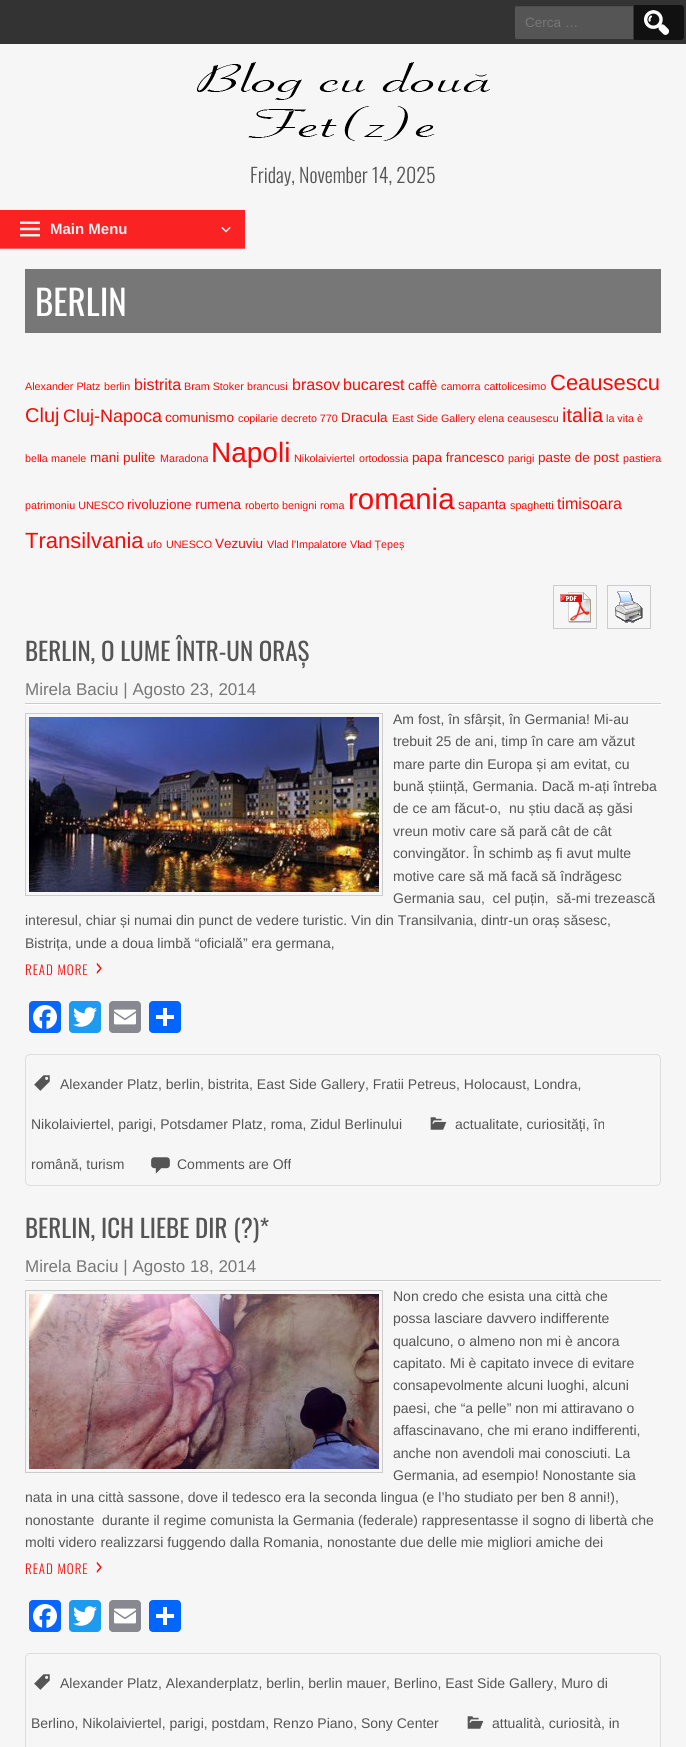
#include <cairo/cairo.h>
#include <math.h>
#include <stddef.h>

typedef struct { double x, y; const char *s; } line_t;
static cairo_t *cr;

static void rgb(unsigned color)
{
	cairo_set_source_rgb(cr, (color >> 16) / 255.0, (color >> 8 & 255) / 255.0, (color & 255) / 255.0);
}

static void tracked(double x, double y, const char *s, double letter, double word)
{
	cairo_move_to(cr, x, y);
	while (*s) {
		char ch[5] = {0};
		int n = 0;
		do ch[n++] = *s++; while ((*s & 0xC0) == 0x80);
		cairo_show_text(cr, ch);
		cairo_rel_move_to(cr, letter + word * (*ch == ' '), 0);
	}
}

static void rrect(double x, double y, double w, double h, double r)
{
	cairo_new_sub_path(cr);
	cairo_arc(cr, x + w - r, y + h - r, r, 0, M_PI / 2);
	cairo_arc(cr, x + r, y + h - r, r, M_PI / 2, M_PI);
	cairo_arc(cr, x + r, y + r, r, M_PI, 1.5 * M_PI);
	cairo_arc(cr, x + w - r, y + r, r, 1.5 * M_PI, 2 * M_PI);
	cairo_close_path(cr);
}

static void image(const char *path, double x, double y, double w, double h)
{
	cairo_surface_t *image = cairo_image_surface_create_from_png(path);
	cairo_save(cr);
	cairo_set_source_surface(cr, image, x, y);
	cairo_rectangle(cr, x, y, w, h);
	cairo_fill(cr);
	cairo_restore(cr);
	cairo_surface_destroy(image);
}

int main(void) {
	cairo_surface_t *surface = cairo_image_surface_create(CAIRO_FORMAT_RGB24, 686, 1747);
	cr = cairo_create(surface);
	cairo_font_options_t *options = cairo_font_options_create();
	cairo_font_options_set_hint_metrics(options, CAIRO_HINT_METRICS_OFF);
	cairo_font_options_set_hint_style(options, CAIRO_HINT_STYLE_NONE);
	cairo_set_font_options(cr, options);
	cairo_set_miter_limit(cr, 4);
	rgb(0xf6f6f6);
	cairo_paint(cr);
	rgb(0x333333);
	cairo_rectangle(cr, 0, 0, 686, 44);
	cairo_fill(cr);
	rgb(0x111111);
	cairo_new_path(cr);
	cairo_move_to(cr, 629, 5);
	cairo_line_to(cr, 681, 5);
	cairo_curve_to(cr, 682.5, 5, 684, 6.5, 684, 8);
	cairo_line_to(cr, 684, 37);
	cairo_curve_to(cr, 684, 38.5, 682.5, 40, 681, 40);
	cairo_line_to(cr, 629, 40);
	cairo_close_path(cr);
	cairo_fill(cr);
	rgb(0x555555);
	cairo_new_path(cr);
	cairo_move_to(cr, 517, 5);
	cairo_line_to(cr, 634, 5);
	cairo_line_to(cr, 634, 40);
	cairo_line_to(cr, 517, 40);
	cairo_curve_to(cr, 515.5, 40, 514, 38.5, 514, 37);
	cairo_line_to(cr, 514, 8);
	cairo_curve_to(cr, 514, 6.5, 515.5, 5, 517, 5);
	cairo_close_path(cr);
	cairo_fill(cr);
	rgb(0x4d4d4d);
	cairo_new_path(cr);
	cairo_move_to(cr, 517, 7);
	cairo_line_to(cr, 633, 7);
	cairo_line_to(cr, 633, 6);
	cairo_line_to(cr, 517, 6);
	cairo_curve_to(cr, 515, 6, 515, 8, 515, 9);
	cairo_curve_to(cr, 515, 8, 516, 7, 517, 7);
	cairo_close_path(cr);
	cairo_fill(cr);
	cairo_new_path(cr);
	cairo_move_to(cr, 517, 5.5);
	cairo_line_to(cr, 633.5, 5.5);
	cairo_line_to(cr, 633.5, 39.5);
	cairo_line_to(cr, 517, 39.5);
	cairo_curve_to(cr, 515.5, 39.5, 514.5, 38.5, 514.5, 37);
	cairo_line_to(cr, 514.5, 8);
	cairo_curve_to(cr, 514.5, 6.5, 515.5, 5.5, 517, 5.5);
	cairo_close_path(cr);
	rgb(0x333333);
	cairo_set_line_width(cr, 1);
	cairo_stroke(cr);
	image("img/1.png", 644, 10, 25, 25);
	image("img/2.png", 196, 62, 295, 79);
	rgb(0xfa2222);
	cairo_rectangle(cr, 0, 210, 245, 38);
	cairo_fill(cr);
	rgb(0xfc6464);
	cairo_rectangle(cr, 0, 248, 245, 1);
	cairo_fill(cr);
	image("img/3.png", 20, 221, 20, 16);
	image("img/4.png", 221, 226, 10, 7);
	rgb(0x777777);
	cairo_rectangle(cr, 25, 269, 636, 64);
	cairo_fill(cr);
	cairo_rectangle(cr, 553.5, 585.5, 43, 43);
	rgb(0xcccccc);
	cairo_stroke(cr);
	image("img/5.png", 560, 592, 31, 31);
	cairo_rectangle(cr, 607.5, 585.5, 43, 43);
	cairo_stroke(cr);
	image("img/6.png", 615, 591, 28, 32);
	cairo_rectangle(cr, 25, 703, 636, 1);
	cairo_fill(cr);
	rgb(0xffffff);
	cairo_rectangle(cr, 25, 704, 636, 1);
	cairo_fill(cr);
	cairo_rectangle(cr, 25.5, 713.5, 357, 182);
	rgb(0xcccccc);
	cairo_stroke(cr);
	image("img/7.png", 29, 717, 350, 175);
	rgb(0x0866ff);
	rrect(29, 1001, 32, 32, 4);
	cairo_fill(cr);
	image("img/8.png", 33, 1005, 24, 24);
	rgb(0x1d9bf0);
	rrect(69, 1001, 32, 32, 4);
	cairo_fill(cr);
	image("img/9.png", 73, 1007, 24, 20);
	rgb(0x888990);
	rrect(109, 1001, 32, 32, 4);
	cairo_fill(cr);
	image("img/10.png", 114, 1009, 22, 16);
	rgb(0x0166ff);
	rrect(149, 1001, 32, 32, 4);
	cairo_fill(cr);
	rgb(0xffffff);
	cairo_rectangle(cr, 163, 1008, 4, 18);
	cairo_fill(cr);
	cairo_rectangle(cr, 156, 1015, 18, 4);
	cairo_fill(cr);
	rrect(25.5, 1054.5, 635, 131, 4.5);
	rgb(0xdddddd);
	cairo_stroke(cr);
	image("img/11.png", 34, 1075, 16, 16);
	image("img/12.png", 430, 1117, 17, 13);
	image("img/13.png", 151, 1157, 19, 17);
	rgb(0xcccccc);
	cairo_rectangle(cr, 25, 1280, 636, 1);
	cairo_fill(cr);
	rgb(0xffffff);
	cairo_rectangle(cr, 25, 1281, 636, 1);
	cairo_fill(cr);
	cairo_rectangle(cr, 25.5, 1290.5, 357, 182);
	rgb(0xcccccc);
	cairo_stroke(cr);
	image("img/14.png", 29, 1294, 350, 175);
	rgb(0x0866ff);
	rrect(29, 1600, 32, 32, 4);
	cairo_fill(cr);
	image("img/8.png", 33, 1604, 24, 24);
	rgb(0x1d9bf0);
	rrect(69, 1600, 32, 32, 4);
	cairo_fill(cr);
	image("img/9.png", 73, 1606, 24, 20);
	rgb(0x888990);
	rrect(109, 1600, 32, 32, 4);
	cairo_fill(cr);
	image("img/10.png", 114, 1608, 22, 16);
	rgb(0x0166ff);
	rrect(149, 1600, 32, 32, 4);
	cairo_fill(cr);
	rgb(0xffffff);
	cairo_rectangle(cr, 163, 1607, 4, 18);
	cairo_fill(cr);
	cairo_rectangle(cr, 156, 1614, 18, 4);
	cairo_fill(cr);
	rrect(25.5, 1653.5, 635, 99, 4.5);
	rgb(0xdddddd);
	cairo_stroke(cr);
	image("img/11.png", 34, 1674, 16, 16);
	image("img/12.png", 467, 1716, 17, 13);
	cairo_select_font_face(cr, "Liberation Sans", CAIRO_FONT_SLANT_NORMAL, CAIRO_FONT_WEIGHT_NORMAL);
	cairo_set_font_size(cr, 13.5);
	rgb(0x777777);
	cairo_move_to(cr, 525, 27);
	cairo_show_text(cr, "Cerca …");
	cairo_select_font_face(cr, "Oswald Light", CAIRO_FONT_SLANT_NORMAL, CAIRO_FONT_WEIGHT_NORMAL);
	cairo_set_font_size(cr, 20);
	rgb(0x555555);
	cairo_move_to(cr, 250, 183);
	cairo_show_text(cr, "Friday, November 14, 2025");
	cairo_select_font_face(cr, "Liberation Sans", CAIRO_FONT_SLANT_NORMAL, CAIRO_FONT_WEIGHT_BOLD);
	cairo_set_font_size(cr, 15);
	rgb(0xeeeeee);
	cairo_move_to(cr, 50, 234);
	cairo_show_text(cr, "Main Menu");
	cairo_select_font_face(cr, "Oswald", CAIRO_FONT_SLANT_NORMAL, CAIRO_FONT_WEIGHT_NORMAL);
	cairo_set_font_size(cr, 35);
	rgb(0xffffff);
	cairo_move_to(cr, 35, 316);
	cairo_show_text(cr, "BERLIN");
	cairo_select_font_face(cr, "Liberation Sans", CAIRO_FONT_SLANT_NORMAL, CAIRO_FONT_WEIGHT_NORMAL);
	cairo_set_font_size(cr, 10.75);
	rgb(0xf90909);
	cairo_move_to(cr, 25, 390);
	cairo_show_text(cr, "Alexander Platz");
	cairo_move_to(cr, 104, 390);
	cairo_show_text(cr, "berlin");
	cairo_set_font_size(cr, 16);
	cairo_move_to(cr, 134, 390);
	cairo_show_text(cr, "bistrita");
	cairo_set_font_size(cr, 10.75);
	cairo_move_to(cr, 184, 390);
	cairo_show_text(cr, "Bram Stoker");
	cairo_move_to(cr, 247, 390);
	cairo_show_text(cr, "brancusi");
	cairo_set_font_size(cr, 16);
	cairo_move_to(cr, 292, 390);
	cairo_show_text(cr, "brasov");
	cairo_move_to(cr, 343, 390);
	cairo_show_text(cr, "bucarest");
	cairo_set_font_size(cr, 13.5);
	cairo_move_to(cr, 408, 390);
	cairo_show_text(cr, "caffè");
	cairo_set_font_size(cr, 10.75);
	cairo_move_to(cr, 441, 390);
	cairo_show_text(cr, "camorra");
	cairo_move_to(cr, 484, 390);
	cairo_show_text(cr, "cattolicesimo");
	cairo_set_font_size(cr, 22);
	cairo_move_to(cr, 550, 390);
	cairo_show_text(cr, "Ceausescu");
	cairo_set_font_size(cr, 20);
	cairo_move_to(cr, 25, 422);
	cairo_show_text(cr, "Cluj");
	cairo_set_font_size(cr, 18);
	cairo_move_to(cr, 63, 422);
	cairo_show_text(cr, "Cluj-Napoca");
	cairo_set_font_size(cr, 13.5);
	cairo_move_to(cr, 165, 422);
	cairo_show_text(cr, "comunismo");
	cairo_set_font_size(cr, 10.75);
	cairo_move_to(cr, 238, 422);
	cairo_show_text(cr, "copilarie");
	cairo_move_to(cr, 281, 422);
	cairo_show_text(cr, "decreto 770");
	cairo_set_font_size(cr, 13.5);
	cairo_move_to(cr, 341, 422);
	cairo_show_text(cr, "Dracula");
	cairo_set_font_size(cr, 10.75);
	cairo_move_to(cr, 392, 422);
	cairo_show_text(cr, "East Side Gallery");
	cairo_move_to(cr, 478, 422);
	cairo_show_text(cr, "elena ceausescu");
	cairo_set_font_size(cr, 20);
	cairo_move_to(cr, 562, 422);
	cairo_show_text(cr, "italia");
	cairo_set_font_size(cr, 10.75);
	{
		static const line_t items[] = {
			{606, 422, "la vita è"},
			{25, 462, "bella"},
			{51, 462, "manele"},
		};
		for (size_t i = 0; i < sizeof items / sizeof *items; i++) {
			cairo_move_to(cr, items[i].x, items[i].y);
			cairo_show_text(cr, items[i].s);
		}
	}
	cairo_set_font_size(cr, 13.5);
	cairo_move_to(cr, 90, 462);
	cairo_show_text(cr, "mani pulite");
	cairo_set_font_size(cr, 10.75);
	cairo_move_to(cr, 160, 462);
	cairo_show_text(cr, "Maradona");
	cairo_set_font_size(cr, 28);
	cairo_move_to(cr, 211, 462);
	cairo_show_text(cr, "Napoli");
	cairo_set_font_size(cr, 10.75);
	cairo_move_to(cr, 294, 462);
	cairo_show_text(cr, "Nikolaiviertel");
	cairo_move_to(cr, 359, 462);
	cairo_show_text(cr, "ortodossia");
	cairo_set_font_size(cr, 13.5);
	cairo_move_to(cr, 412, 462);
	cairo_show_text(cr, "papa francesco");
	cairo_set_font_size(cr, 10.75);
	cairo_move_to(cr, 508, 462);
	cairo_show_text(cr, "parigi");
	cairo_set_font_size(cr, 13.5);
	cairo_move_to(cr, 538, 462);
	cairo_show_text(cr, "paste de post");
	cairo_set_font_size(cr, 10.75);
	cairo_move_to(cr, 623, 462);
	cairo_show_text(cr, "pastiera");
	cairo_move_to(cr, 25, 509);
	cairo_show_text(cr, "patrimoniu UNESCO");
	cairo_set_font_size(cr, 13.5);
	cairo_move_to(cr, 127, 509);
	cairo_show_text(cr, "rivoluzione rumena");
	cairo_set_font_size(cr, 10.75);
	cairo_move_to(cr, 245, 509);
	cairo_show_text(cr, "roberto benigni");
	cairo_move_to(cr, 320, 509);
	cairo_show_text(cr, "roma");
	cairo_set_font_size(cr, 29.5);
	cairo_move_to(cr, 348, 509);
	cairo_show_text(cr, "romania");
	cairo_set_font_size(cr, 13.5);
	cairo_move_to(cr, 458, 509);
	cairo_show_text(cr, "sapanta");
	cairo_set_font_size(cr, 10.75);
	cairo_move_to(cr, 510, 509);
	cairo_show_text(cr, "spaghetti");
	cairo_set_font_size(cr, 16);
	cairo_move_to(cr, 557, 509);
	cairo_show_text(cr, "timisoara");
	cairo_set_font_size(cr, 22);
	cairo_move_to(cr, 25, 548);
	cairo_show_text(cr, "Transilvania");
	cairo_set_font_size(cr, 10.75);
	cairo_move_to(cr, 147, 548);
	cairo_show_text(cr, "ufo");
	cairo_move_to(cr, 166, 548);
	cairo_show_text(cr, "UNESCO");
	cairo_set_font_size(cr, 13.5);
	cairo_move_to(cr, 215, 548);
	cairo_show_text(cr, "Vezuviu");
	cairo_set_font_size(cr, 10.75);
	cairo_move_to(cr, 267, 548);
	cairo_show_text(cr, "Vlad l'Impalatore");
	cairo_move_to(cr, 350, 548);
	cairo_show_text(cr, "Vlad Țepeș");
	cairo_select_font_face(cr, "Oswald", CAIRO_FONT_SLANT_NORMAL, CAIRO_FONT_WEIGHT_NORMAL);
	cairo_set_font_size(cr, 25);
	rgb(0x555555);
	cairo_move_to(cr, 25, 661);
	cairo_show_text(cr, "BERLIN, O LUME ÎNTR-UN ORAȘ");
	cairo_select_font_face(cr, "Liberation Sans", CAIRO_FONT_SLANT_NORMAL, CAIRO_FONT_WEIGHT_NORMAL);
	cairo_set_font_size(cr, 17);
	rgb(0x777777);
	cairo_move_to(cr, 25, 695);
	cairo_show_text(cr, "Mirela Baciu | Agosto 23, 2014");
	cairo_set_font_size(cr, 14);
	rgb(0x555555);
	{
		static const line_t items[] = {
			{393, 724, "Am fost, în sfârșit, în Germania! Mi-au"},
			{393, 746, "trebuit 25 de ani, timp în care am văzut"},
			{393, 769, "mare parte din Europa și am evitat, cu"},
			{393, 791, "bună știință, Germania. Dacă m-ați întreba"},
			{393, 813, "de ce am făcut-o,  nu știu dacă aș găsi"},
			{393, 836, "vreun motiv care să pară cât de cât"},
			{393, 858, "convingător. În schimb aș fi avut multe"},
			{393, 881, "motive care să mă facă să îndrăgesc"},
			{393, 903, "Germania sau,  cel puțin,  să-mi trezească"},
			{25, 925, "interesul, chiar și numai din punct de vedere turistic. Vin din Transilvania, dintr-un oraș săsesc,"},
			{25, 948, "Bistrița, unde a doua limbă “oficială” era germana,"},
		};
		for (size_t i = 0; i < sizeof items / sizeof *items; i++) {
			cairo_move_to(cr, items[i].x, items[i].y);
			cairo_show_text(cr, items[i].s);
		}
	}
	cairo_select_font_face(cr, "Oswald Light", CAIRO_FONT_SLANT_NORMAL, CAIRO_FONT_WEIGHT_NORMAL);
	cairo_set_font_size(cr, 13);
	rgb(0xf90909);
	tracked(25, 975, "READ MORE", 1, 0);
	cairo_set_font_size(cr, 25);
	tracked(95, 977, "›", 1, 0);
	cairo_select_font_face(cr, "Liberation Sans", CAIRO_FONT_SLANT_NORMAL, CAIRO_FONT_WEIGHT_NORMAL);
	cairo_set_font_size(cr, 14);
	rgb(0x555555);
	{
		static const line_t items[] = {
			{60, 1089, "Alexander Platz, berlin, bistrita, East Side Gallery, Fratii Petreus, Holocaust, Londra,"},
			{31, 1129, "Nikolaiviertel, parigi, Potsdamer Platz, roma, Zidul Berlinului"},
			{455, 1129, "actualitate, curiosități, în"},
			{31, 1169, "română, turism"},
			{177, 1169, "Comments are Off"},
		};
		for (size_t i = 0; i < sizeof items / sizeof *items; i++) {
			cairo_move_to(cr, items[i].x, items[i].y);
			cairo_show_text(cr, items[i].s);
		}
	}
	cairo_select_font_face(cr, "Oswald", CAIRO_FONT_SLANT_NORMAL, CAIRO_FONT_WEIGHT_NORMAL);
	cairo_set_font_size(cr, 25);
	cairo_move_to(cr, 25, 1238);
	cairo_show_text(cr, "BERLIN, ICH LIEBE DIR (?)*");
	cairo_select_font_face(cr, "Liberation Sans", CAIRO_FONT_SLANT_NORMAL, CAIRO_FONT_WEIGHT_NORMAL);
	cairo_set_font_size(cr, 17);
	rgb(0x777777);
	cairo_move_to(cr, 25, 1272);
	cairo_show_text(cr, "Mirela Baciu | Agosto 18, 2014");
	cairo_set_font_size(cr, 14);
	rgb(0x555555);
	{
		static const line_t items[] = {
			{393, 1301, "Non credo che esista una città che"},
			{393, 1323, "possa lasciare davvero indifferente"},
			{393, 1346, "qualcuno, o almeno non mi è ancora"},
			{393, 1368, "capitato. Mi è capitato invece di evitare"},
			{393, 1390, "consapevolmente alcuni luoghi, alcuni"},
			{393, 1413, "paesi, che “a pelle” non mi attiravano o"},
			{393, 1435, "affascinavano, che mi erano indifferenti,"},
			{393, 1458, "anche non avendoli mai conosciuti. La"},
			{393, 1480, "Germania, ad esempio! Nonostante sia"},
			{25, 1502, "nata in una città sassone, dove il tedesco era la seconda lingua (e l’ho studiato per ben 8 anni!),"},
			{25, 1525, "nonostante  durante il regime comunista la Germania (federale) rappresentasse il sogno di libertà che"},
			{25, 1547, "molti videro realizzarsi fuggendo dalla Romania, nonostante due delle mie migliori amiche dei"},
		};
		for (size_t i = 0; i < sizeof items / sizeof *items; i++) {
			cairo_move_to(cr, items[i].x, items[i].y);
			cairo_show_text(cr, items[i].s);
		}
	}
	cairo_select_font_face(cr, "Oswald Light", CAIRO_FONT_SLANT_NORMAL, CAIRO_FONT_WEIGHT_NORMAL);
	cairo_set_font_size(cr, 13);
	rgb(0xf90909);
	tracked(25, 1574, "READ MORE", 1, 0);
	cairo_set_font_size(cr, 25);
	tracked(95, 1576, "›", 1, 0);
	cairo_select_font_face(cr, "Liberation Sans", CAIRO_FONT_SLANT_NORMAL, CAIRO_FONT_WEIGHT_NORMAL);
	cairo_set_font_size(cr, 14);
	rgb(0x555555);
	{
		static const line_t items[] = {
			{60, 1688, "Alexander Platz, Alexanderplatz, berlin, berlin mauer, Berlino, East Side Gallery, Muro di"},
			{31, 1728, "Berlino, Nikolaiviertel, parigi, postdam, Renzo Piano, Sony Center"},
			{492, 1728, "attualità, curiosità, in"},
		};
		for (size_t i = 0; i < sizeof items / sizeof *items; i++) {
			cairo_move_to(cr, items[i].x, items[i].y);
			cairo_show_text(cr, items[i].s);
		}
	}
	cairo_surface_write_to_png(surface, "page.png");
	cairo_font_options_destroy(options);
	cairo_destroy(cr);
	cairo_surface_destroy(surface);
	return 0;
}
